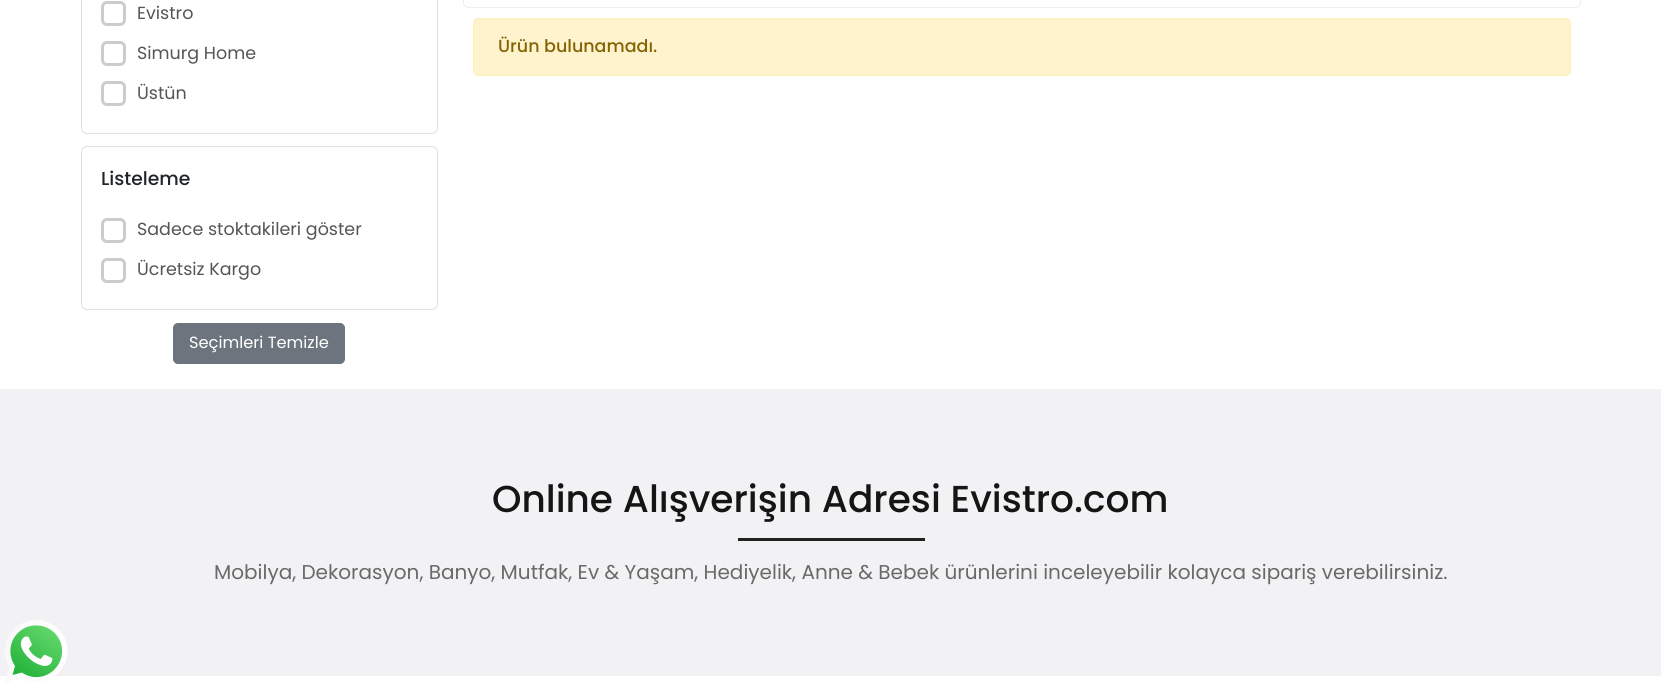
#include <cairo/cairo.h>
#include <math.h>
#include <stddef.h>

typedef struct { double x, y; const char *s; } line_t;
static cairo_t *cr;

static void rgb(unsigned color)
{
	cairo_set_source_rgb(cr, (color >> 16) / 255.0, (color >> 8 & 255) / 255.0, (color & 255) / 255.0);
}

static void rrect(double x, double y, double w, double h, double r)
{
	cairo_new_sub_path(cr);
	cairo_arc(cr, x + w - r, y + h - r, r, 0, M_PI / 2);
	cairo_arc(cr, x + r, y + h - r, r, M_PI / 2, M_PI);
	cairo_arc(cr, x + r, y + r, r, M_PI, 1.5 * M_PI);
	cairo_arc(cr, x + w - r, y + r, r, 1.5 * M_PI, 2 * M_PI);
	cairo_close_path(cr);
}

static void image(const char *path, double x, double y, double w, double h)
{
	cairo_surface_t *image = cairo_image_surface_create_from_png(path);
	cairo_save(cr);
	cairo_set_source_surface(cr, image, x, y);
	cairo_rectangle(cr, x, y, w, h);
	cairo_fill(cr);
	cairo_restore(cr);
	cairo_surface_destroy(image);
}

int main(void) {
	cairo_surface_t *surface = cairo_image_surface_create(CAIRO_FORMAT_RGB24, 1661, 695);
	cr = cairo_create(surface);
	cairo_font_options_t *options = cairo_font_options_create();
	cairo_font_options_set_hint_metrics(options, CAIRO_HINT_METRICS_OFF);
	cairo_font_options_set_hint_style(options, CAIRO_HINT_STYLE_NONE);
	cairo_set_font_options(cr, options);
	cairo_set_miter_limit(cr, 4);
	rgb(0xffffff);
	cairo_paint(cr);
	rrect(81.5, -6.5, 356, 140, 5.5);
	rgb(0xe0e0e0);
	cairo_set_line_width(cr, 1);
	cairo_stroke(cr);
	rrect(102.5, 2.5, 22, 22, 4.5);
	rgb(0xcccccc);
	cairo_set_line_width(cr, 3);
	cairo_stroke(cr);
	rrect(102.5, 42.5, 22, 22, 4.5);
	cairo_stroke(cr);
	rrect(102.5, 82.5, 22, 22, 4.5);
	cairo_stroke(cr);
	rrect(81.5, 146.5, 356, 163, 5.5);
	rgb(0xe0e0e0);
	cairo_set_line_width(cr, 1);
	cairo_stroke(cr);
	rrect(102.5, 219.5, 22, 22, 4.5);
	rgb(0xcccccc);
	cairo_set_line_width(cr, 3);
	cairo_stroke(cr);
	rrect(102.5, 259.5, 22, 22, 4.5);
	cairo_stroke(cr);
	rgb(0x6c757d);
	rrect(173.5, 323.5, 171, 40, 4.5);
	cairo_fill_preserve(cr);
	cairo_set_line_width(cr, 1);
	cairo_stroke(cr);
	rrect(463.5, -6.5, 1117, 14, 5.5);
	rgb(0xeeeeee);
	cairo_stroke(cr);
	rgb(0xfff3cd);
	rrect(473.5, 18.5, 1097, 57, 4.5);
	cairo_fill_preserve(cr);
	rgb(0xffeeba);
	cairo_stroke(cr);
	rgb(0xf2f2f4);
	cairo_rectangle(cr, 0, 389, 1661, 287);
	cairo_fill(cr);
	rgb(0x222222);
	cairo_rectangle(cr, 738, 538, 187, 3);
	cairo_fill(cr);
	image("img/1.png", 5, 620, 63, 62);
	cairo_select_font_face(cr, "Poppins", CAIRO_FONT_SLANT_NORMAL, CAIRO_FONT_WEIGHT_NORMAL);
	cairo_set_font_size(cr, 17.5);
	rgb(0x555555);
	{
		static const line_t items[] = {
			{137, 19, "Evistro"},
			{137, 59, "Simurg Home"},
			{137, 99, "Üstün"},
		};
		for (size_t i = 0; i < sizeof items / sizeof *items; i++) {
			cairo_move_to(cr, items[i].x, items[i].y);
			cairo_show_text(cr, items[i].s);
		}
	}
	cairo_select_font_face(cr, "Poppins Medium", CAIRO_FONT_SLANT_NORMAL, CAIRO_FONT_WEIGHT_NORMAL);
	cairo_set_font_size(cr, 18.75);
	rgb(0x212529);
	cairo_move_to(cr, 101, 185);
	cairo_show_text(cr, "Listeleme");
	cairo_select_font_face(cr, "Poppins", CAIRO_FONT_SLANT_NORMAL, CAIRO_FONT_WEIGHT_NORMAL);
	cairo_set_font_size(cr, 17.5);
	rgb(0x555555);
	cairo_move_to(cr, 137, 235);
	cairo_show_text(cr, "Sadece stoktakileri göster");
	cairo_move_to(cr, 137, 275);
	cairo_show_text(cr, "Ücretsiz Kargo");
	cairo_set_font_size(cr, 16.25);
	rgb(0xffffff);
	cairo_move_to(cr, 189, 348);
	cairo_show_text(cr, "Seçimleri Temizle");
	cairo_select_font_face(cr, "Poppins Medium", CAIRO_FONT_SLANT_NORMAL, CAIRO_FONT_WEIGHT_NORMAL);
	cairo_set_font_size(cr, 17.5);
	rgb(0x856404);
	cairo_move_to(cr, 498, 52);
	cairo_show_text(cr, "Ürün bulunamadı.");
	cairo_set_font_size(cr, 37.5);
	rgb(0x151515);
	cairo_move_to(cr, 492, 512);
	cairo_show_text(cr, "Online Alışverişin Adresi Evistro.com");
	cairo_select_font_face(cr, "Poppins", CAIRO_FONT_SLANT_NORMAL, CAIRO_FONT_WEIGHT_NORMAL);
	cairo_set_font_size(cr, 20);
	rgb(0x696969);
	cairo_move_to(cr, 214, 579);
	cairo_show_text(cr, "Mobilya, Dekorasyon, Banyo, Mutfak, Ev & Yaşam, Hediyelik, Anne & Bebek ürünlerini inceleyebilir kolayca sipariş verebilirsiniz.");
	cairo_surface_write_to_png(surface, "page.png");
	cairo_font_options_destroy(options);
	cairo_destroy(cr);
	cairo_surface_destroy(surface);
	return 0;
}
